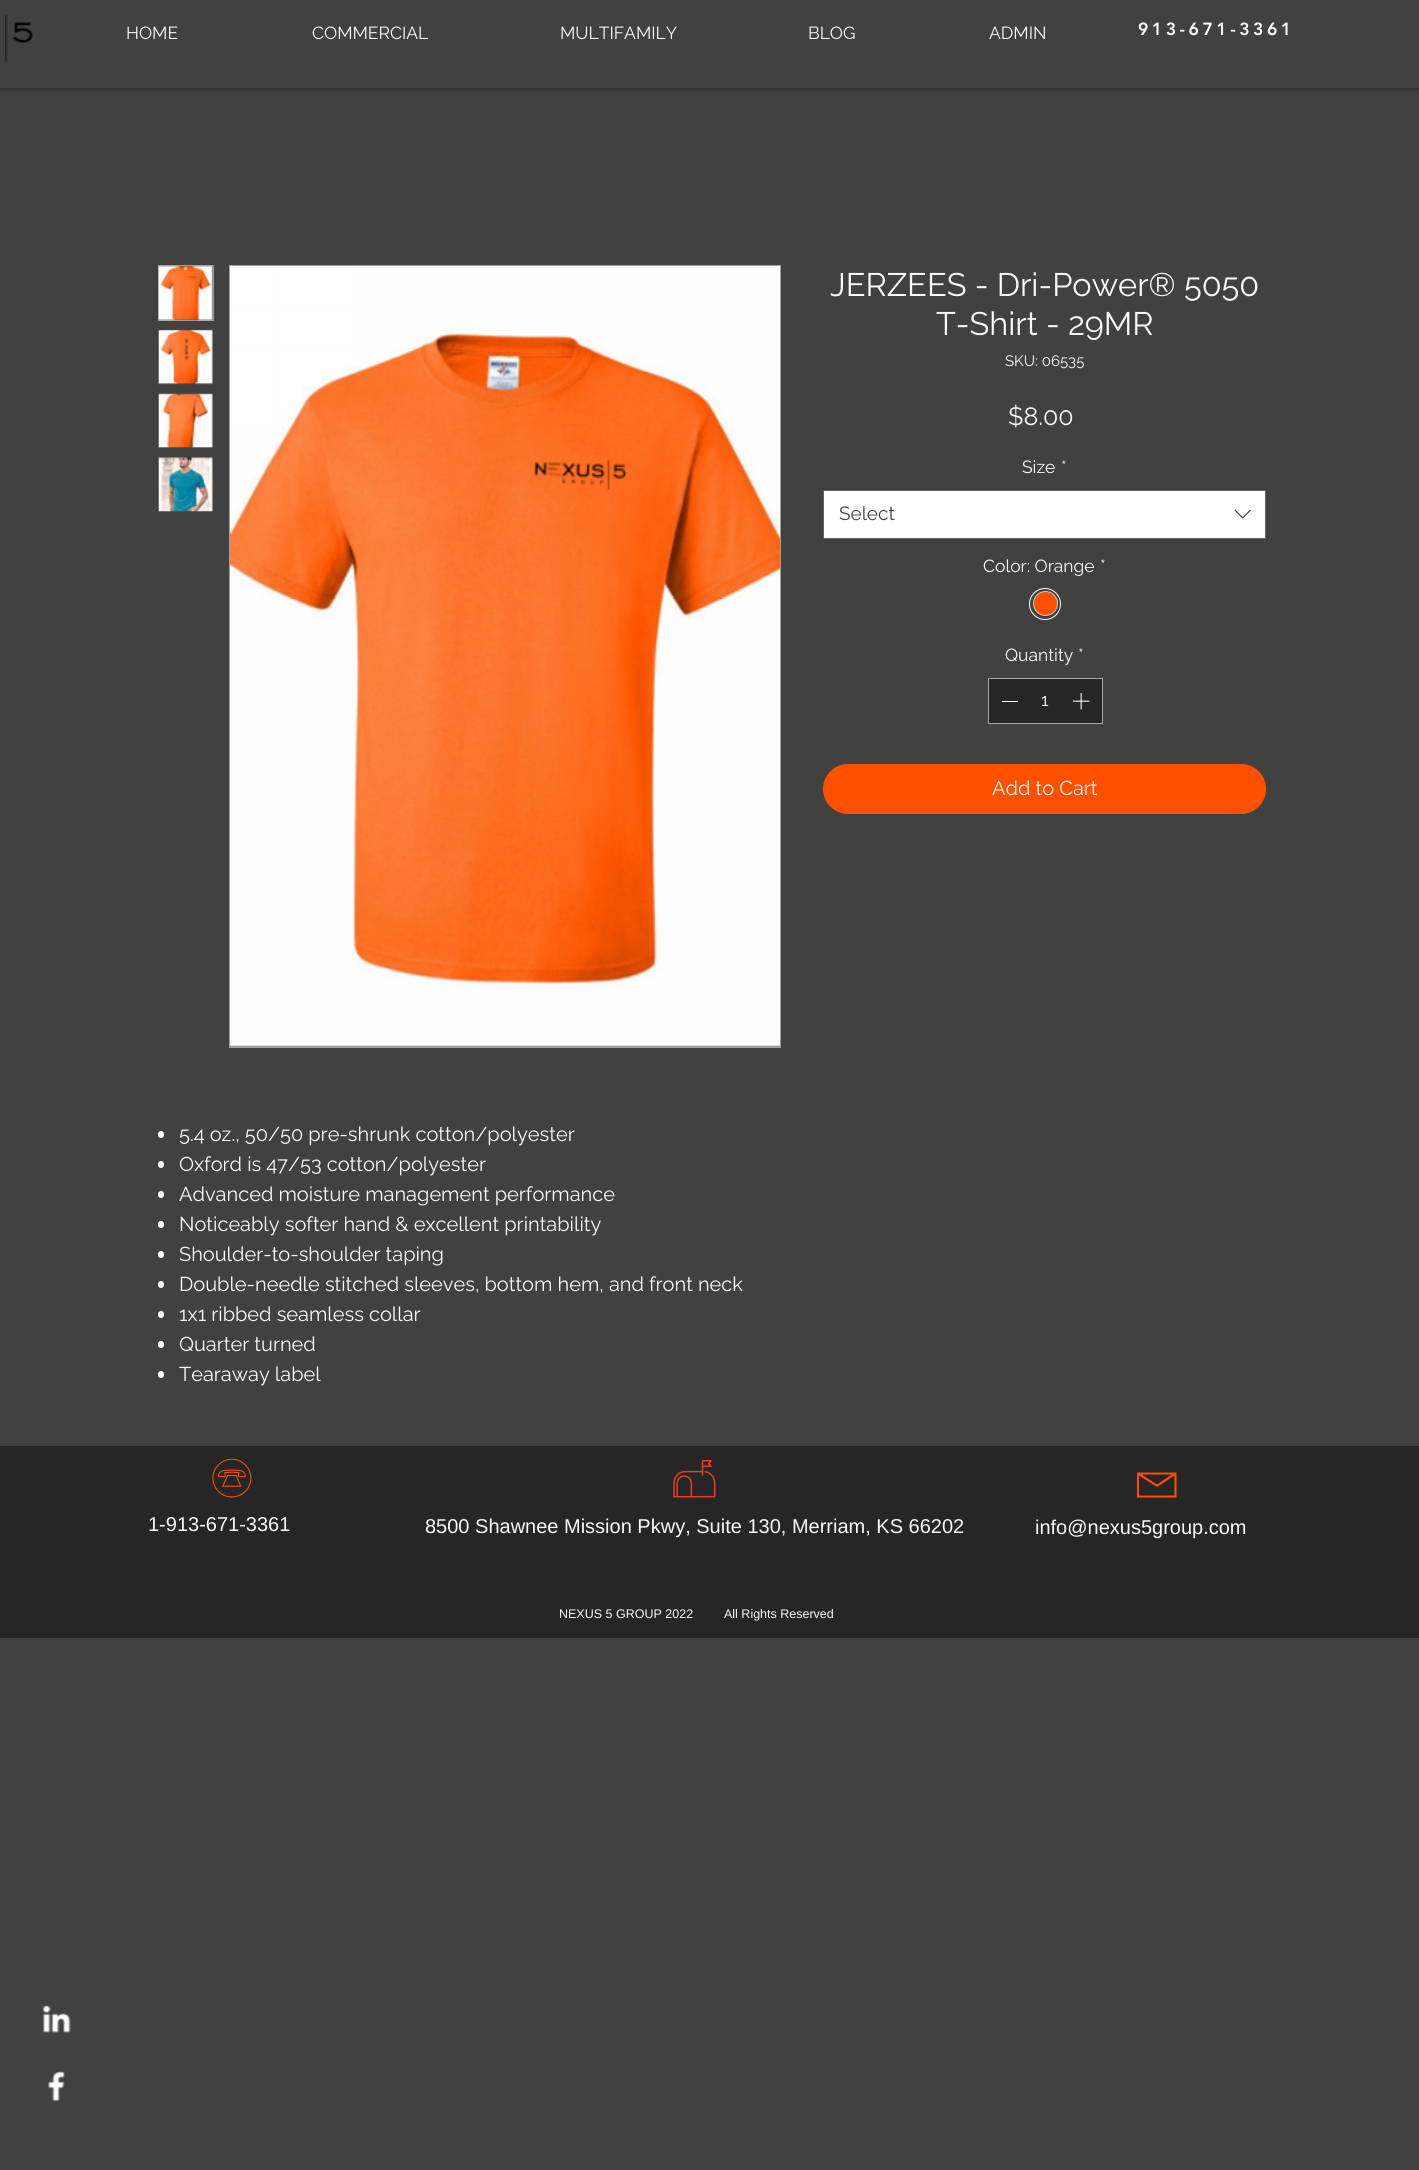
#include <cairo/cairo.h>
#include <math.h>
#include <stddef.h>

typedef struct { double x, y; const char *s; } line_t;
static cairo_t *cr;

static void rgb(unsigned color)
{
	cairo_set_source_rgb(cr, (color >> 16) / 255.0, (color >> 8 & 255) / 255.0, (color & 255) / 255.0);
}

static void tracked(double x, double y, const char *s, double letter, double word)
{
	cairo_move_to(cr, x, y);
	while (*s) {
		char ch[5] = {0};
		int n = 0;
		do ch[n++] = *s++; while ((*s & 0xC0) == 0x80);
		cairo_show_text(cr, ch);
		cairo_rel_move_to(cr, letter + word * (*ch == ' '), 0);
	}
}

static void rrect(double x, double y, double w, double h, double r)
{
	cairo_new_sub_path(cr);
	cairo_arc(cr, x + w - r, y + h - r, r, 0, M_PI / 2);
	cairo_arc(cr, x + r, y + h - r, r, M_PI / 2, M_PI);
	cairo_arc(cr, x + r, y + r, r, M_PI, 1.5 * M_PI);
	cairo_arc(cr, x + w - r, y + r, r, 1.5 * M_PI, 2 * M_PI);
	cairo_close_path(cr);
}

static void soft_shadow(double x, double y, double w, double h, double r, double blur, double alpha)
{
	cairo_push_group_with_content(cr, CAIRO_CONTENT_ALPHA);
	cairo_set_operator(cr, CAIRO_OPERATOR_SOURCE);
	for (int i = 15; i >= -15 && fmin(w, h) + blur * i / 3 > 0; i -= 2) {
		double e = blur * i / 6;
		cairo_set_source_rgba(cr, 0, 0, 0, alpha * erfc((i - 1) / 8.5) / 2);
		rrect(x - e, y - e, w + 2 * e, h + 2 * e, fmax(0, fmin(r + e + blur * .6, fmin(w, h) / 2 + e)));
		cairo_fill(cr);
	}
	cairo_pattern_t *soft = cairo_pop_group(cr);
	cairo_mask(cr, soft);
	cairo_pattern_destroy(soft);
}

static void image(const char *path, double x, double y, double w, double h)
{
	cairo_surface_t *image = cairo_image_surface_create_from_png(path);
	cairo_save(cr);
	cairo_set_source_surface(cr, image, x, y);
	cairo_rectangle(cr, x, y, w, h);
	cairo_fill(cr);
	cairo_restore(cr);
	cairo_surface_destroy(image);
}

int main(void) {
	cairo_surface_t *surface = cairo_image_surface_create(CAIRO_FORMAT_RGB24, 1419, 2170);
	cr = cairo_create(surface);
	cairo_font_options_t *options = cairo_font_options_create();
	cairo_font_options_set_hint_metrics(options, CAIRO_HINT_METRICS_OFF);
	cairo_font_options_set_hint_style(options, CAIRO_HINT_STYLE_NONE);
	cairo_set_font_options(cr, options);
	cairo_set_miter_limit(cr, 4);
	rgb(0x414141);
	cairo_paint(cr);
	rgb(0x000000);
	soft_shadow(0, 0, 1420, 88, 0, 3, 0.5);
	rgb(0x414141);
	cairo_rectangle(cr, 0, 0, 1419, 88);
	cairo_fill(cr);
	image("img/1.png", 5, 15, 28, 47);
	rgb(0xffffff);
	cairo_rectangle(cr, 823.5, 490.5, 442, 48);
	cairo_fill_preserve(cr);
	rgb(0x666666);
	cairo_set_line_width(cr, 1);
	cairo_stroke(cr);
	image("img/2.png", 1234, 509, 17, 10);
	cairo_arc(cr, 1045, 604, 15.5, 0, 2 * M_PI);
	rgb(0xfafafa);
	cairo_stroke(cr);
	rgb(0xff5000);
	cairo_arc(cr, 1045.5, 603.5, 12, 0, 2 * M_PI);
	cairo_fill_preserve(cr);
	rgb(0xc9c9c9);
	cairo_stroke(cr);
	rgb(0x262626);
	cairo_rectangle(cr, 988.5, 678.5, 114, 45);
	cairo_fill_preserve(cr);
	rgb(0xa8a8a8);
	cairo_stroke(cr);
	rgb(0xfafafa);
	cairo_rectangle(cr, 1002, 701, 16, 1);
	cairo_fill(cr);
	image("img/3.png", 1073, 693, 17, 17);
	rgb(0xff5000);
	rrect(823, 764, 443, 50, 25);
	cairo_fill(cr);
	cairo_rectangle(cr, 158.5, 265.5, 55, 55);
	rgb(0xa0a0a0);
	cairo_stroke(cr);
	image("img/4.png", 158, 266, 55, 55);
	image("img/5.png", 158, 329, 55, 56);
	image("img/6.png", 158, 393, 55, 55);
	image("img/7.png", 158, 457, 55, 55);
	cairo_rectangle(cr, 229.5, 265.5, 551, 782);
	cairo_stroke(cr);
	image("img/8.png", 230, 266, 550, 781);
	rgb(0xffffff);
	rrect(158, 1131, 6, 7, 3);
	cairo_fill(cr);
	rrect(158, 1161, 6, 7, 3);
	cairo_fill(cr);
	rrect(158, 1191, 6, 7, 3);
	cairo_fill(cr);
	rrect(158, 1221, 6, 7, 3);
	cairo_fill(cr);
	rrect(158, 1251, 6, 7, 3);
	cairo_fill(cr);
	rrect(158, 1281, 6, 7, 3);
	cairo_fill(cr);
	rrect(158, 1311, 6, 7, 3);
	cairo_fill(cr);
	rrect(158, 1341, 6, 7, 3);
	cairo_fill(cr);
	rrect(158, 1371, 6, 7, 3);
	cairo_fill(cr);
	rgb(0x262626);
	cairo_rectangle(cr, 0, 1446, 1419, 192);
	cairo_fill(cr);
	image("img/9.png", 212, 1458, 40, 40);
	image("img/10.png", 673, 1460, 43, 38);
	rgb(0xff5000);
	cairo_new_path(cr);
	cairo_move_to(cr, 1137, 1472.5);
	cairo_line_to(cr, 1137, 1497.5);
	cairo_line_to(cr, 1176.5, 1497.5);
	cairo_line_to(cr, 1176.5, 1472.5);
	cairo_close_path(cr);
	cairo_move_to(cr, 1172, 1474.5);
	cairo_line_to(cr, 1157, 1484.5);
	cairo_line_to(cr, 1141.5, 1474.5);
	cairo_close_path(cr);
	cairo_move_to(cr, 1139, 1495.5);
	cairo_line_to(cr, 1139, 1475.5);
	cairo_line_to(cr, 1157, 1487);
	cairo_line_to(cr, 1174.5, 1475.5);
	cairo_line_to(cr, 1174.5, 1495.5);
	cairo_close_path(cr);
	cairo_fill(cr);
	image("img/11.png", 42, 2005, 29, 28);
	image("img/12.png", 48, 2071, 17, 31);
	cairo_select_font_face(cr, "Raleway", CAIRO_FONT_SLANT_NORMAL, CAIRO_FONT_WEIGHT_NORMAL);
	cairo_set_font_size(cr, 17.5);
	rgb(0xfafafa);
	{
		static const line_t items[] = {
			{126, 39, "HOME"},
			{312, 39, "COMMERCIAL"},
			{560, 39, "MULTIFAMILY"},
			{808, 39, "BLOG"},
			{989, 39, "ADMIN"},
		};
		for (size_t i = 0; i < sizeof items / sizeof *items; i++) {
			cairo_move_to(cr, items[i].x, items[i].y);
			cairo_show_text(cr, items[i].s);
		}
	}
	cairo_select_font_face(cr, "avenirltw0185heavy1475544 Black", CAIRO_FONT_SLANT_NORMAL, CAIRO_FONT_WEIGHT_NORMAL);
	tracked(1138, 35, "913-671-3361", 3.5, 0);
	cairo_select_font_face(cr, "Raleway", CAIRO_FONT_SLANT_NORMAL, CAIRO_FONT_WEIGHT_NORMAL);
	cairo_set_font_size(cr, 32.5);
	cairo_move_to(cr, 830, 296);
	cairo_show_text(cr, "JERZEES - Dri-Power® 5050");
	cairo_move_to(cr, 936, 335);
	cairo_show_text(cr, "T-Shirt - 29MR");
	cairo_set_font_size(cr, 15);
	cairo_move_to(cr, 1005, 366);
	cairo_show_text(cr, "SKU: 06535");
	cairo_set_font_size(cr, 25);
	cairo_move_to(cr, 1008, 425);
	cairo_show_text(cr, "$8.00");
	cairo_set_font_size(cr, 17.5);
	cairo_move_to(cr, 1022, 473);
	cairo_show_text(cr, "Size");
	cairo_move_to(cr, 1061, 473);
	cairo_show_text(cr, "*");
	cairo_set_font_size(cr, 19);
	rgb(0x444444);
	cairo_move_to(cr, 839, 520);
	cairo_show_text(cr, "Select");
	cairo_set_font_size(cr, 17.5);
	rgb(0xfafafa);
	{
		static const line_t items[] = {
			{983, 572, "Color: Orange"},
			{1100, 572, "*"},
			{1005, 661, "Quantity"},
			{1078, 661, "*"},
			{1041, 706, "1"},
		};
		for (size_t i = 0; i < sizeof items / sizeof *items; i++) {
			cairo_move_to(cr, items[i].x, items[i].y);
			cairo_show_text(cr, items[i].s);
		}
	}
	cairo_set_font_size(cr, 20);
	{
		static const line_t items[] = {
			{992, 795, "Add to Cart"},
			{179, 1141, "5.4 oz., 50/50 pre-shrunk cotton/polyester"},
			{179, 1171, "Oxford is 47/53 cotton/polyester"},
			{179, 1201, "Advanced moisture management performance"},
			{179, 1231, "Noticeably softer hand & excellent printability"},
			{179, 1261, "Shoulder-to-shoulder taping"},
			{179, 1291, "Double-needle stitched sleeves, bottom hem, and front neck"},
			{179, 1321, "1x1 ribbed seamless collar"},
			{179, 1351, "Quarter turned"},
			{179, 1381, "Tearaway label"},
		};
		for (size_t i = 0; i < sizeof items / sizeof *items; i++) {
			cairo_move_to(cr, items[i].x, items[i].y);
			cairo_show_text(cr, items[i].s);
		}
	}
	cairo_select_font_face(cr, "Liberation Sans", CAIRO_FONT_SLANT_NORMAL, CAIRO_FONT_WEIGHT_NORMAL);
	{
		static const line_t items[] = {
			{148, 1531, "1-913-671-3361"},
			{425, 1533, "8500 Shawnee Mission Pkwy, Suite 130, Merriam, KS 66202"},
			{1035, 1534, "info@nexus5group.com"},
		};
		for (size_t i = 0; i < sizeof items / sizeof *items; i++) {
			cairo_move_to(cr, items[i].x, items[i].y);
			cairo_show_text(cr, items[i].s);
		}
	}
	cairo_set_font_size(cr, 12.5);
	cairo_move_to(cr, 559, 1618);
	cairo_show_text(cr, "NEXUS 5 GROUP 2022");
	cairo_move_to(cr, 724, 1618);
	cairo_show_text(cr, "All Rights Reserved");
	cairo_surface_write_to_png(surface, "page.png");
	cairo_font_options_destroy(options);
	cairo_destroy(cr);
	cairo_surface_destroy(surface);
	return 0;
}
